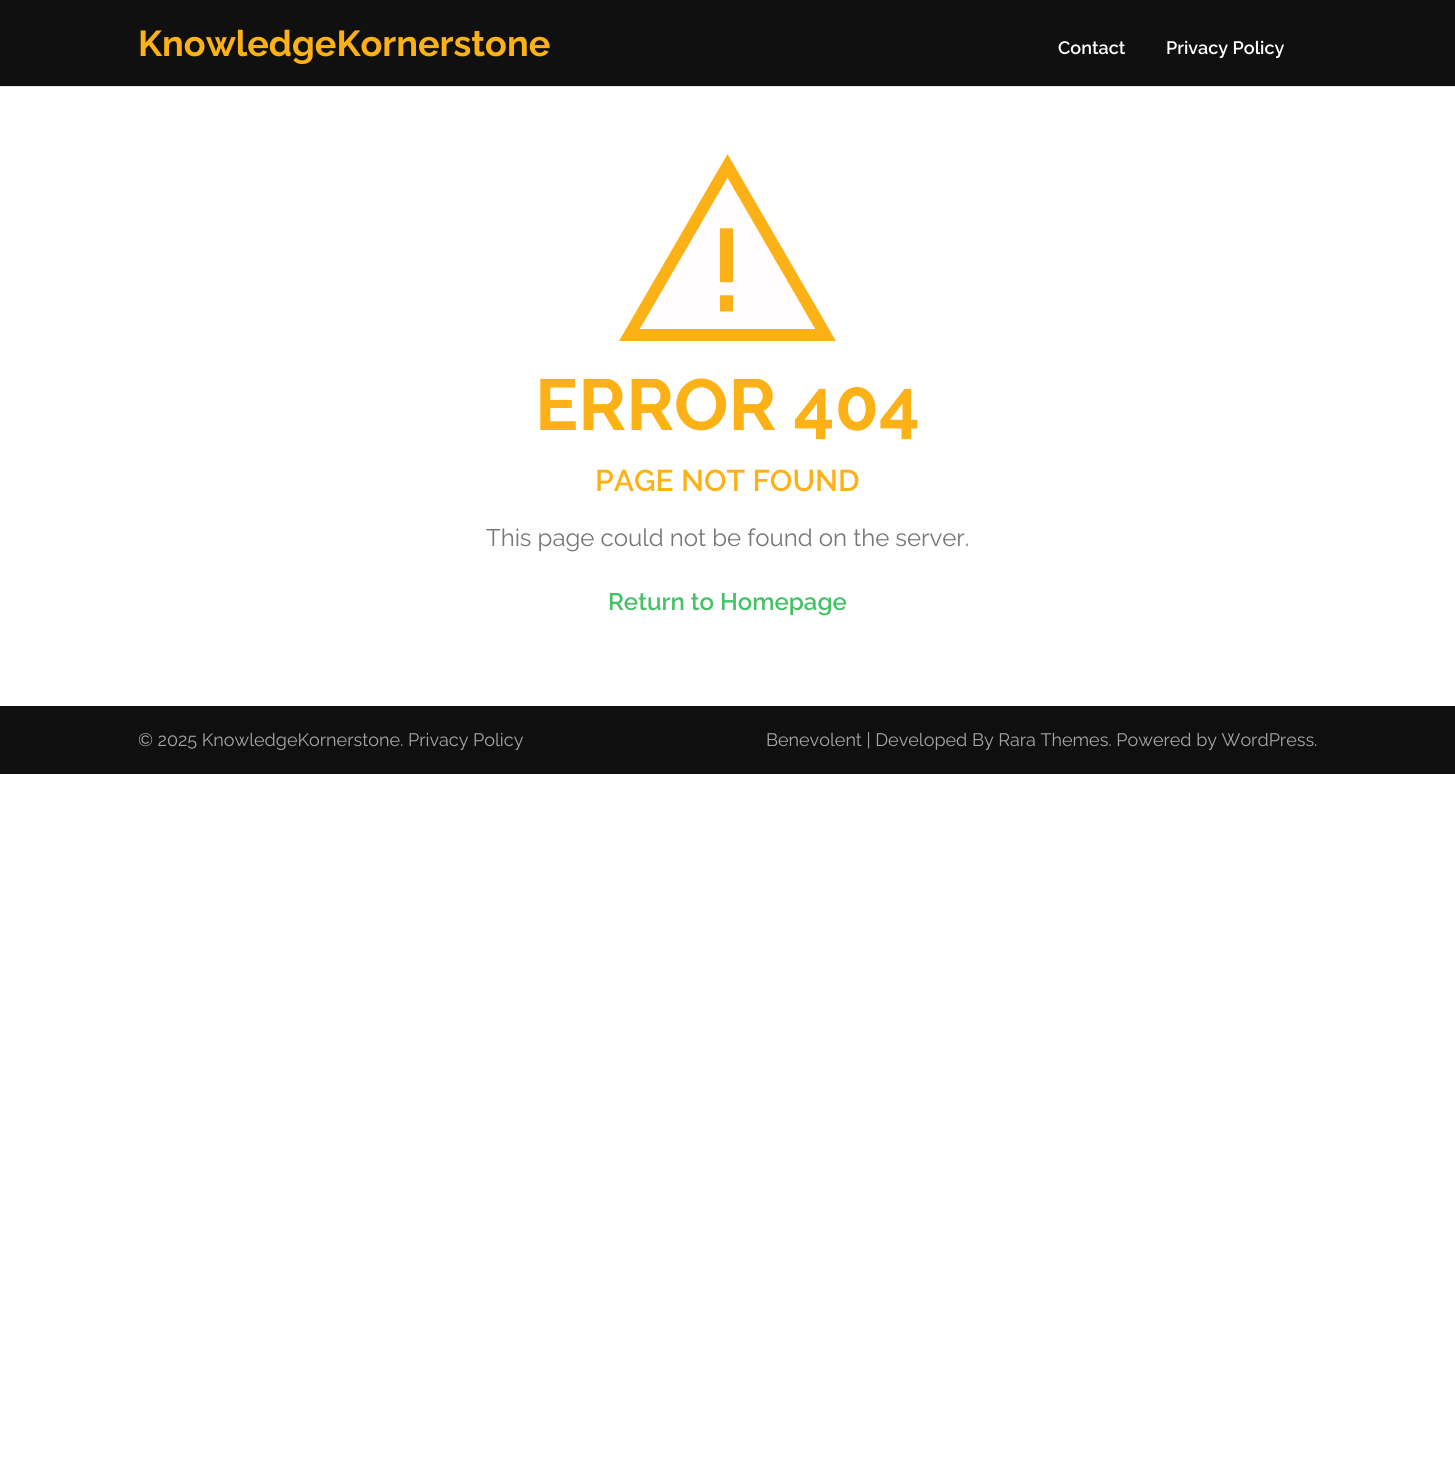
#include <cairo/cairo.h>
#include <math.h>
#include <stddef.h>

typedef struct { double x, y; const char *s; } line_t;
static cairo_t *cr;

static void rgb(unsigned color)
{
	cairo_set_source_rgb(cr, (color >> 16) / 255.0, (color >> 8 & 255) / 255.0, (color & 255) / 255.0);
}

static void image(const char *path, double x, double y, double w, double h)
{
	cairo_surface_t *image = cairo_image_surface_create_from_png(path);
	cairo_save(cr);
	cairo_set_source_surface(cr, image, x, y);
	cairo_rectangle(cr, x, y, w, h);
	cairo_fill(cr);
	cairo_restore(cr);
	cairo_surface_destroy(image);
}

int main(void) {
	cairo_surface_t *surface = cairo_image_surface_create(CAIRO_FORMAT_RGB24, 1455, 1470);
	cr = cairo_create(surface);
	cairo_font_options_t *options = cairo_font_options_create();
	cairo_font_options_set_hint_metrics(options, CAIRO_HINT_METRICS_OFF);
	cairo_font_options_set_hint_style(options, CAIRO_HINT_STYLE_NONE);
	cairo_set_font_options(cr, options);
	cairo_set_miter_limit(cr, 4);
	rgb(0xffffff);
	cairo_paint(cr);
	rgb(0xe4e4e4);
	cairo_rectangle(cr, 0, 86, 1455, 1);
	cairo_fill(cr);
	rgb(0x101010);
	cairo_rectangle(cr, 0, 0, 1455, 86);
	cairo_fill(cr);
	image("img/1.png", 619, 154, 217, 187);
	rgb(0x0f0f0f);
	cairo_rectangle(cr, 0, 706, 1455, 68);
	cairo_fill(cr);
	cairo_select_font_face(cr, "Raleway", CAIRO_FONT_SLANT_NORMAL, CAIRO_FONT_WEIGHT_BOLD);
	cairo_set_font_size(cr, 36);
	rgb(0xfcb216);
	cairo_move_to(cr, 138, 56);
	cairo_show_text(cr, "KnowledgeKornerstone");
	cairo_select_font_face(cr, "Raleway SemiBold", CAIRO_FONT_SLANT_NORMAL, CAIRO_FONT_WEIGHT_NORMAL);
	cairo_set_font_size(cr, 18);
	rgb(0xffffff);
	cairo_move_to(cr, 1058, 54);
	cairo_show_text(cr, "Contact");
	cairo_move_to(cr, 1166, 54);
	cairo_show_text(cr, "Privacy Policy");
	cairo_select_font_face(cr, "Raleway", CAIRO_FONT_SLANT_NORMAL, CAIRO_FONT_WEIGHT_BOLD);
	cairo_set_font_size(cr, 72);
	rgb(0xfcb216);
	cairo_move_to(cr, 535, 430);
	cairo_show_text(cr, "ERROR 404");
	cairo_select_font_face(cr, "Raleway SemiBold", CAIRO_FONT_SLANT_NORMAL, CAIRO_FONT_WEIGHT_NORMAL);
	cairo_set_font_size(cr, 30);
	cairo_move_to(cr, 595, 491);
	cairo_show_text(cr, "PAGE NOT FOUND");
	cairo_select_font_face(cr, "Raleway", CAIRO_FONT_SLANT_NORMAL, CAIRO_FONT_WEIGHT_NORMAL);
	cairo_set_font_size(cr, 24);
	rgb(0x777777);
	cairo_move_to(cr, 486, 546);
	cairo_show_text(cr, "This page could not be found on the server.");
	cairo_select_font_face(cr, "Raleway SemiBold", CAIRO_FONT_SLANT_NORMAL, CAIRO_FONT_WEIGHT_NORMAL);
	rgb(0x45c267);
	cairo_move_to(cr, 608, 610);
	cairo_show_text(cr, "Return to Homepage");
	cairo_select_font_face(cr, "Raleway", CAIRO_FONT_SLANT_NORMAL, CAIRO_FONT_WEIGHT_NORMAL);
	cairo_set_font_size(cr, 18);
	rgb(0xa6a6a6);
	{
		static const line_t items[] = {
			{138, 746, "© 2025 KnowledgeKornerstone."},
			{408, 746, "Privacy Policy"},
			{766, 746, "Benevolent | Developed By Rara Themes. Powered by WordPress."},
		};
		for (size_t i = 0; i < sizeof items / sizeof *items; i++) {
			cairo_move_to(cr, items[i].x, items[i].y);
			cairo_show_text(cr, items[i].s);
		}
	}
	cairo_surface_write_to_png(surface, "page.png");
	cairo_font_options_destroy(options);
	cairo_destroy(cr);
	cairo_surface_destroy(surface);
	return 0;
}
